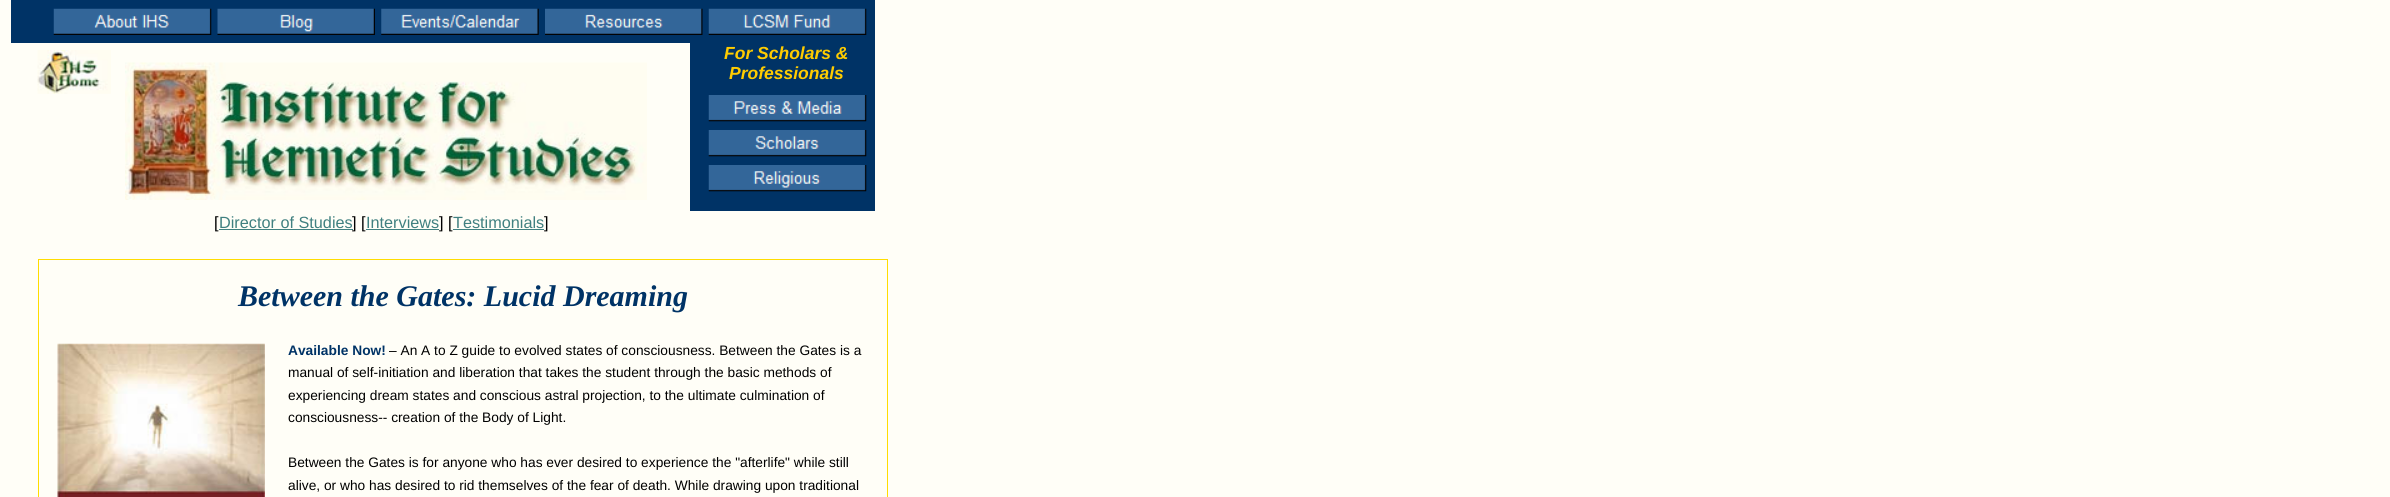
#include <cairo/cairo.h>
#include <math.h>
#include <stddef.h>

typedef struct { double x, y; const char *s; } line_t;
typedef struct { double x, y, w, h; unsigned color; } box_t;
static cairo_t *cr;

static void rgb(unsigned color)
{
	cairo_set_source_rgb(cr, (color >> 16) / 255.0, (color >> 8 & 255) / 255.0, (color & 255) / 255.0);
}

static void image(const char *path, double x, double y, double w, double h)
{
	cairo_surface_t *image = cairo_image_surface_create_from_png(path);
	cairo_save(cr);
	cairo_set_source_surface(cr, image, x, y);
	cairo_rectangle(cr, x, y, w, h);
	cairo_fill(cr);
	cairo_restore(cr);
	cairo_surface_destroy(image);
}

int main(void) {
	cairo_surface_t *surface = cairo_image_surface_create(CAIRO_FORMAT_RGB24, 2390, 497);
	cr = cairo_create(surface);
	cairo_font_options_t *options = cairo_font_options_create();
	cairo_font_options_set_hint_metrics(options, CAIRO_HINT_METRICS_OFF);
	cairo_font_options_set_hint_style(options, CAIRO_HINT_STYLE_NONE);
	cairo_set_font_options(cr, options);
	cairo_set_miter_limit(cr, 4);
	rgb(0xfffef7);
	cairo_paint(cr);
	rgb(0x003366);
	cairo_rectangle(cr, 11, 0, 864, 43);
	cairo_fill(cr);
	image("img/1.png", 53, 8, 159, 27);
	image("img/2.png", 217, 8, 158, 27);
	image("img/3.png", 381, 8, 158, 27);
	image("img/4.png", 545, 8, 158, 27);
	image("img/5.png", 708, 8, 159, 27);
	cairo_rectangle(cr, 690, 43, 185, 168);
	cairo_fill(cr);
	image("img/6.png", 708, 95, 159, 27);
	image("img/7.png", 708, 130, 159, 27);
	image("img/8.png", 708, 165, 159, 27);
	image("img/9.png", 37, 50, 74, 44);
	image("img/10.png", 125, 62, 522, 138);
	{
		static const box_t items[] = {
			{219, 229, 134, 1, 0x408080},
			{366, 229, 73, 1, 0x408080},
			{453, 229, 91, 1, 0x408080},
		};
		for (size_t i = 0; i < sizeof items / sizeof *items; i++) {
			rgb(items[i].color);
			cairo_rectangle(cr, items[i].x, items[i].y, items[i].w, items[i].h);
			cairo_fill(cr);
		}
	}
	cairo_rectangle(cr, 38.5, 259.5, 849, 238);
	rgb(0xffdd00);
	cairo_set_line_width(cr, 1);
	cairo_stroke(cr);
	image("img/11.png", 57, 343, 208, 154);
	cairo_select_font_face(cr, "Liberation Sans", CAIRO_FONT_SLANT_ITALIC, CAIRO_FONT_WEIGHT_BOLD);
	cairo_set_font_size(cr, 17.5);
	rgb(0xffcc00);
	cairo_move_to(cr, 724, 59);
	cairo_show_text(cr, "For Scholars &");
	cairo_move_to(cr, 729, 79);
	cairo_show_text(cr, "Professionals");
	cairo_select_font_face(cr, "Liberation Sans", CAIRO_FONT_SLANT_NORMAL, CAIRO_FONT_WEIGHT_NORMAL);
	cairo_set_font_size(cr, 16.25);
	rgb(0x000000);
	cairo_move_to(cr, 214, 228);
	cairo_show_text(cr, "[");
	rgb(0x408080);
	cairo_move_to(cr, 219, 228);
	cairo_show_text(cr, "Director of Studies");
	rgb(0x000000);
	cairo_move_to(cr, 352, 228);
	cairo_show_text(cr, "] [");
	rgb(0x408080);
	cairo_move_to(cr, 366, 228);
	cairo_show_text(cr, "Interviews");
	rgb(0x000000);
	cairo_move_to(cr, 439, 228);
	cairo_show_text(cr, "] [");
	rgb(0x408080);
	cairo_move_to(cr, 453, 228);
	cairo_show_text(cr, "Testimonials");
	rgb(0x000000);
	cairo_move_to(cr, 544, 228);
	cairo_show_text(cr, "]");
	cairo_select_font_face(cr, "Liberation Serif", CAIRO_FONT_SLANT_ITALIC, CAIRO_FONT_WEIGHT_BOLD);
	cairo_set_font_size(cr, 30);
	rgb(0x003366);
	cairo_move_to(cr, 238, 306);
	cairo_show_text(cr, "Between the Gates: Lucid Dreaming");
	cairo_select_font_face(cr, "Liberation Sans", CAIRO_FONT_SLANT_NORMAL, CAIRO_FONT_WEIGHT_BOLD);
	cairo_set_font_size(cr, 13.75);
	cairo_move_to(cr, 288, 355);
	cairo_show_text(cr, "Available Now!");
	cairo_select_font_face(cr, "Liberation Sans", CAIRO_FONT_SLANT_NORMAL, CAIRO_FONT_WEIGHT_NORMAL);
	rgb(0x000000);
	{
		static const line_t items[] = {
			{389, 355, "– An A to Z guide to evolved states of consciousness. Between the Gates is a"},
			{288, 377, "manual of self-initiation and liberation that takes the student through the basic methods of"},
			{288, 400, "experiencing dream states and conscious astral projection, to the ultimate culmination of"},
			{288, 422, "consciousness-- creation of the Body of Light."},
			{288, 467, "Between the Gates is for anyone who has ever desired to experience the \"afterlife\" while still"},
			{288, 490, "alive, or who has desired to rid themselves of the fear of death. While drawing upon traditional"},
		};
		for (size_t i = 0; i < sizeof items / sizeof *items; i++) {
			cairo_move_to(cr, items[i].x, items[i].y);
			cairo_show_text(cr, items[i].s);
		}
	}
	cairo_surface_write_to_png(surface, "page.png");
	cairo_font_options_destroy(options);
	cairo_destroy(cr);
	cairo_surface_destroy(surface);
	return 0;
}
